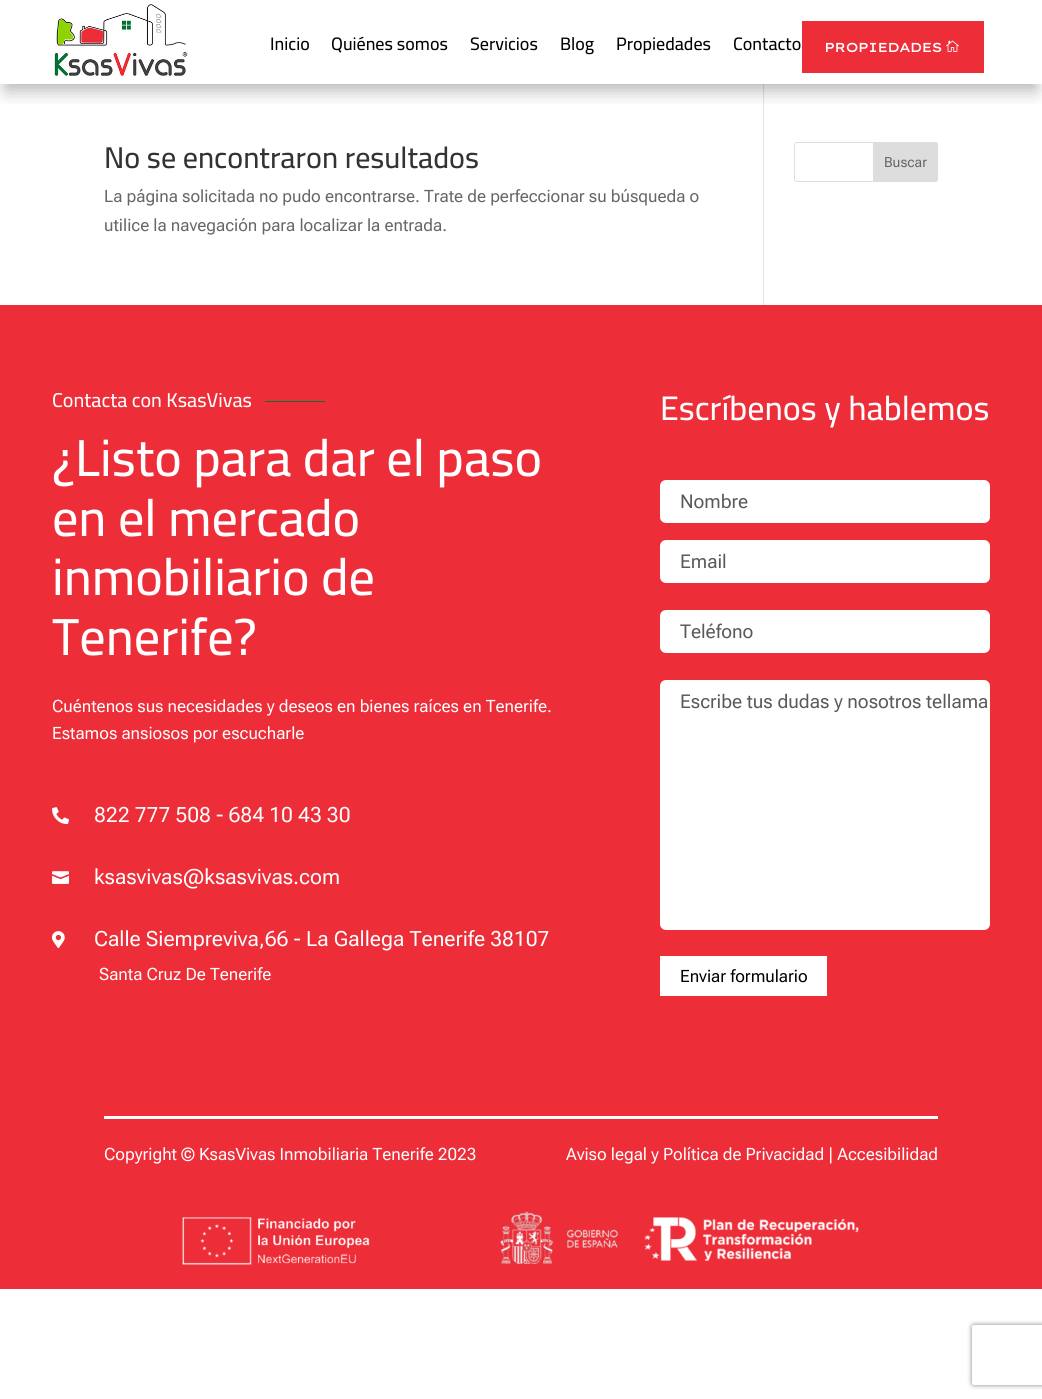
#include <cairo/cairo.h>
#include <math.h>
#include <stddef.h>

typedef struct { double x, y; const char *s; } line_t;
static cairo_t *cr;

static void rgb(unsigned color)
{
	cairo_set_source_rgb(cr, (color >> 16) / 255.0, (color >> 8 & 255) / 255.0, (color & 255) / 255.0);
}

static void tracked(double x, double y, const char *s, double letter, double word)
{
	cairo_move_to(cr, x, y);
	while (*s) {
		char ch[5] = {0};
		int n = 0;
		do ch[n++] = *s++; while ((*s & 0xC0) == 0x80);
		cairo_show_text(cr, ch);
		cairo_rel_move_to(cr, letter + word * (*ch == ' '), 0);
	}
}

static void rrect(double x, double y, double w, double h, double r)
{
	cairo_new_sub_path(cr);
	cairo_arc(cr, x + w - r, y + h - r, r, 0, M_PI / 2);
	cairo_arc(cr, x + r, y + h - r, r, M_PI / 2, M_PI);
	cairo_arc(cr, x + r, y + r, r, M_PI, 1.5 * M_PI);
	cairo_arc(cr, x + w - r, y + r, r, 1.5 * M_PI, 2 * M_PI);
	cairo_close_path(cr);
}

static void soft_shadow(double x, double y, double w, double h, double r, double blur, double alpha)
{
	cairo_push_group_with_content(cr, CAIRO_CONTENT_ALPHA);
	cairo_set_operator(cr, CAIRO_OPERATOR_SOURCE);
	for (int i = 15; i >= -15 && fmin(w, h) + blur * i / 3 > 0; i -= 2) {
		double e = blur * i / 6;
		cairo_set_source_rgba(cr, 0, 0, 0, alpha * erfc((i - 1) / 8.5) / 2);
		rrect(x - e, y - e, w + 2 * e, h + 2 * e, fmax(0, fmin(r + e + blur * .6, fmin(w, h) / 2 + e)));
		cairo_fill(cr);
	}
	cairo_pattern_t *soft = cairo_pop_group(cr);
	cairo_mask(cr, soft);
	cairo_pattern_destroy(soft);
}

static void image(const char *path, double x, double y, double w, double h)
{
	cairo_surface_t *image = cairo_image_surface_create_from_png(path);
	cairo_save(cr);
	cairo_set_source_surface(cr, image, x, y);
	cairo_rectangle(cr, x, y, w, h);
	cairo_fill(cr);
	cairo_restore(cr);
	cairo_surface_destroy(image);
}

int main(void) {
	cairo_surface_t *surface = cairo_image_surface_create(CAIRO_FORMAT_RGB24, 1042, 1399);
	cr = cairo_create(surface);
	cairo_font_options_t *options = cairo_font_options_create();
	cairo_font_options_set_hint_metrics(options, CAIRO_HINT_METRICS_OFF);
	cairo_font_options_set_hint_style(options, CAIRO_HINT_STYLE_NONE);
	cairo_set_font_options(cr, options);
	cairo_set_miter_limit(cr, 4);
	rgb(0xffffff);
	cairo_paint(cr);
	rgb(0xe2e2e2);
	cairo_rectangle(cr, 763, 84, 1, 221);
	cairo_fill(cr);
	cairo_save(cr);
	cairo_rectangle(cr, 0, 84, 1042, 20);
	cairo_clip(cr);
	rgb(0x000000);
	soft_shadow(6, 18, 1030, 72, 0, 9, 0.3);
	cairo_restore(cr);
	image("img/1.png", 54, 4, 134, 73);
	rgb(0xed2e38);
	cairo_rectangle(cr, 802, 21, 182, 52);
	cairo_fill(cr);
	image("img/2.png", 946, 40, 13, 12);
	rrect(794.5, 142.5, 143, 39, 2.5);
	rgb(0xdddddd);
	cairo_set_line_width(cr, 1);
	cairo_stroke(cr);
	cairo_new_path(cr);
	cairo_move_to(cr, 873.5, 142.5);
	cairo_line_to(cr, 935, 142.5);
	cairo_curve_to(cr, 936.5, 142.5, 937.5, 143.5, 937.5, 145);
	cairo_line_to(cr, 937.5, 179);
	cairo_curve_to(cr, 937.5, 180.5, 936.5, 181.5, 935, 181.5);
	cairo_line_to(cr, 873.5, 181.5);
	cairo_close_path(cr);
	cairo_fill_preserve(cr);
	cairo_stroke(cr);
	rgb(0xed2d38);
	cairo_rectangle(cr, 0, 305, 1042, 984);
	cairo_fill(cr);
	rgb(0x007437);
	cairo_rectangle(cr, 265, 401, 60, 1);
	cairo_fill(cr);
	image("img/3.png", 52, 807, 17, 18);
	image("img/4.png", 52, 871, 17, 13);
	image("img/5.png", 52, 931, 13, 18);
	rgb(0xffffff);
	rrect(660, 480, 330, 43, 6);
	cairo_fill(cr);
	rrect(660, 540, 330, 43, 6);
	cairo_fill(cr);
	rrect(660, 610, 330, 43, 6);
	cairo_fill(cr);
	rrect(660, 680, 330, 250, 6);
	cairo_fill(cr);
	cairo_rectangle(cr, 660, 956, 167, 40);
	cairo_fill(cr);
	cairo_rectangle(cr, 104, 1116, 834, 3);
	cairo_fill(cr);
	image("img/6.png", 182, 1211, 677, 54);
	cairo_save(cr);
	cairo_set_fill_rule(cr, CAIRO_FILL_RULE_EVEN_ODD);
	cairo_new_path(cr);
	cairo_move_to(cr, 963, 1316);
	cairo_line_to(cr, 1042, 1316);
	cairo_line_to(cr, 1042, 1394);
	cairo_line_to(cr, 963, 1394);
	cairo_close_path(cr);
	cairo_move_to(cr, 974, 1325);
	cairo_line_to(cr, 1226, 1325);
	cairo_curve_to(cr, 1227, 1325, 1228, 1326, 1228, 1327);
	cairo_line_to(cr, 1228, 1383);
	cairo_curve_to(cr, 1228, 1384, 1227, 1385, 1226, 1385);
	cairo_line_to(cr, 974, 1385);
	cairo_curve_to(cr, 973, 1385, 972, 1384, 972, 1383);
	cairo_line_to(cr, 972, 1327);
	cairo_curve_to(cr, 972, 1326, 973, 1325, 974, 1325);
	cairo_close_path(cr);
	cairo_clip(cr);
	rgb(0x808080);
	soft_shadow(972, 1325, 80, 60, 2, 2.5, 1);
	cairo_restore(cr);
	cairo_select_font_face(cr, "Cairo Medium", CAIRO_FONT_SLANT_NORMAL, CAIRO_FONT_WEIGHT_NORMAL);
	cairo_set_font_size(cr, 18);
	rgb(0x000000);
	{
		static const line_t items[] = {
			{270, 50, "Inicio"},
			{331, 50, "Quiénes somos"},
			{470, 50, "Servicios"},
			{560, 50, "Blog"},
			{616, 50, "Propiedades"},
			{733, 50, "Contacto"},
		};
		for (size_t i = 0; i < sizeof items / sizeof *items; i++) {
			cairo_move_to(cr, items[i].x, items[i].y);
			cairo_show_text(cr, items[i].s);
		}
	}
	cairo_select_font_face(cr, "Lexend Peta Medium", CAIRO_FONT_SLANT_NORMAL, CAIRO_FONT_WEIGHT_NORMAL);
	cairo_set_font_size(cr, 13);
	rgb(0xffffff);
	tracked(824, 52, "PROPIEDADES", -1, 0);
	cairo_select_font_face(cr, "Cairo Medium", CAIRO_FONT_SLANT_NORMAL, CAIRO_FONT_WEIGHT_NORMAL);
	cairo_set_font_size(cr, 30);
	rgb(0x333333);
	cairo_move_to(cr, 104, 168);
	cairo_show_text(cr, "No se encontraron resultados");
	cairo_select_font_face(cr, "Roboto Flex", CAIRO_FONT_SLANT_NORMAL, CAIRO_FONT_WEIGHT_NORMAL);
	cairo_set_font_size(cr, 17);
	rgb(0x666666);
	cairo_move_to(cr, 104, 202);
	cairo_show_text(cr, "La página solicitada no pudo encontrarse. Trate de perfeccionar su búsqueda o");
	cairo_move_to(cr, 104, 231);
	cairo_show_text(cr, "utilice la navegación para localizar la entrada.");
	cairo_set_font_size(cr, 14);
	cairo_move_to(cr, 884, 167);
	cairo_show_text(cr, "Buscar");
	cairo_select_font_face(cr, "Cairo Medium", CAIRO_FONT_SLANT_NORMAL, CAIRO_FONT_WEIGHT_NORMAL);
	cairo_set_font_size(cr, 20);
	rgb(0xffffff);
	cairo_move_to(cr, 52, 407);
	cairo_show_text(cr, "Contacta con KsasVivas");
	cairo_set_font_size(cr, 52);
	{
		static const line_t items[] = {
			{52, 476, "¿Listo para dar el paso"},
			{52, 536, "en el mercado"},
			{52, 595, "inmobiliario de"},
			{52, 655, "Tenerife?"},
		};
		for (size_t i = 0; i < sizeof items / sizeof *items; i++) {
			cairo_move_to(cr, items[i].x, items[i].y);
			cairo_show_text(cr, items[i].s);
		}
	}
	cairo_select_font_face(cr, "Roboto Flex", CAIRO_FONT_SLANT_NORMAL, CAIRO_FONT_WEIGHT_NORMAL);
	cairo_set_font_size(cr, 17);
	cairo_move_to(cr, 52, 712);
	cairo_show_text(cr, "Cuéntenos sus necesidades y deseos en bienes raíces en Tenerife.");
	cairo_move_to(cr, 52, 739);
	cairo_show_text(cr, "Estamos ansiosos por escucharle");
	cairo_set_font_size(cr, 21);
	{
		static const line_t items[] = {
			{94, 822, "822 777 508 - 684 10 43 30"},
			{94, 884, "ksasvivas@ksasvivas.com"},
			{94, 946, "Calle Siempreviva,66 - La Gallega Tenerife 38107"},
		};
		for (size_t i = 0; i < sizeof items / sizeof *items; i++) {
			cairo_move_to(cr, items[i].x, items[i].y);
			cairo_show_text(cr, items[i].s);
		}
	}
	cairo_set_font_size(cr, 17);
	cairo_move_to(cr, 99, 980);
	cairo_show_text(cr, "Santa Cruz De Tenerife");
	cairo_select_font_face(cr, "Cairo Medium", CAIRO_FONT_SLANT_NORMAL, CAIRO_FONT_WEIGHT_NORMAL);
	cairo_set_font_size(cr, 34);
	cairo_move_to(cr, 660, 420);
	cairo_show_text(cr, "Escríbenos y hablemos");
	cairo_select_font_face(cr, "Roboto Flex", CAIRO_FONT_SLANT_NORMAL, CAIRO_FONT_WEIGHT_NORMAL);
	cairo_set_font_size(cr, 19);
	rgb(0x595959);
	{
		static const line_t items[] = {
			{680, 508, "Nombre"},
			{680, 568, "Email"},
			{680, 638, "Teléfono"},
			{680, 708, "Escribe tus dudas y nosotros tellama"},
		};
		for (size_t i = 0; i < sizeof items / sizeof *items; i++) {
			cairo_move_to(cr, items[i].x, items[i].y);
			cairo_show_text(cr, items[i].s);
		}
	}
	cairo_set_font_size(cr, 17);
	rgb(0x000000);
	cairo_move_to(cr, 680, 982);
	cairo_show_text(cr, "Enviar formulario");
	rgb(0xffffff);
	cairo_move_to(cr, 104, 1160);
	cairo_show_text(cr, "Copyright © KsasVivas Inmobiliaria Tenerife 2023");
	cairo_move_to(cr, 566, 1160);
	cairo_show_text(cr, "Aviso legal y Política de Privacidad | Accesibilidad");
	cairo_surface_write_to_png(surface, "page.png");
	cairo_font_options_destroy(options);
	cairo_destroy(cr);
	cairo_surface_destroy(surface);
	return 0;
}
